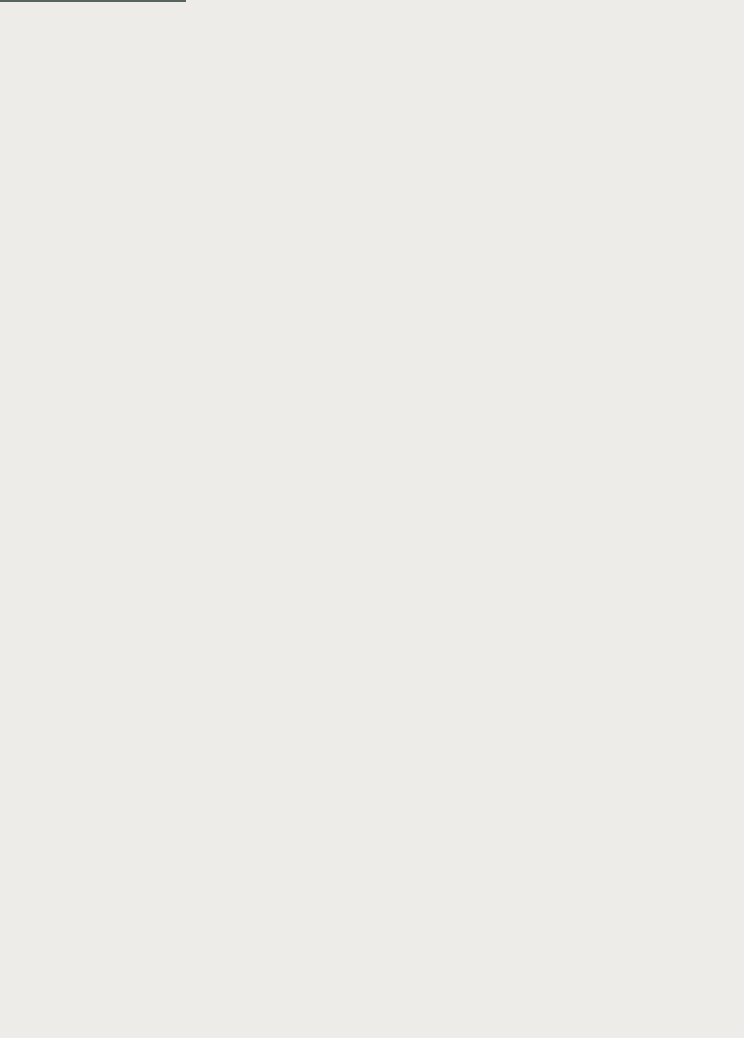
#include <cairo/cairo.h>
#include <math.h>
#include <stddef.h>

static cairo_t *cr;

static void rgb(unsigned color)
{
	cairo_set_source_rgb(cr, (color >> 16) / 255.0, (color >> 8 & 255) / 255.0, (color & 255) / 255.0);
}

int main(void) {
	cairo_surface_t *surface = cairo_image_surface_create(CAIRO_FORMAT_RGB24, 744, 1038);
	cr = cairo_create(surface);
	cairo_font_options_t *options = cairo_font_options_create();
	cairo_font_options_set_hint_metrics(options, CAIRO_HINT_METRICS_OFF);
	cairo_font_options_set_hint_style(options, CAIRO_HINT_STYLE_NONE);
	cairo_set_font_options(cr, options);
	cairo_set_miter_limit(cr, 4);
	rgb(0xedece9);
	cairo_paint(cr);
	rgb(0x596460);
	cairo_rectangle(cr, 0, 0, 186, 2);
	cairo_fill(cr);
	cairo_surface_write_to_png(surface, "page.png");
	cairo_font_options_destroy(options);
	cairo_destroy(cr);
	cairo_surface_destroy(surface);
	return 0;
}
